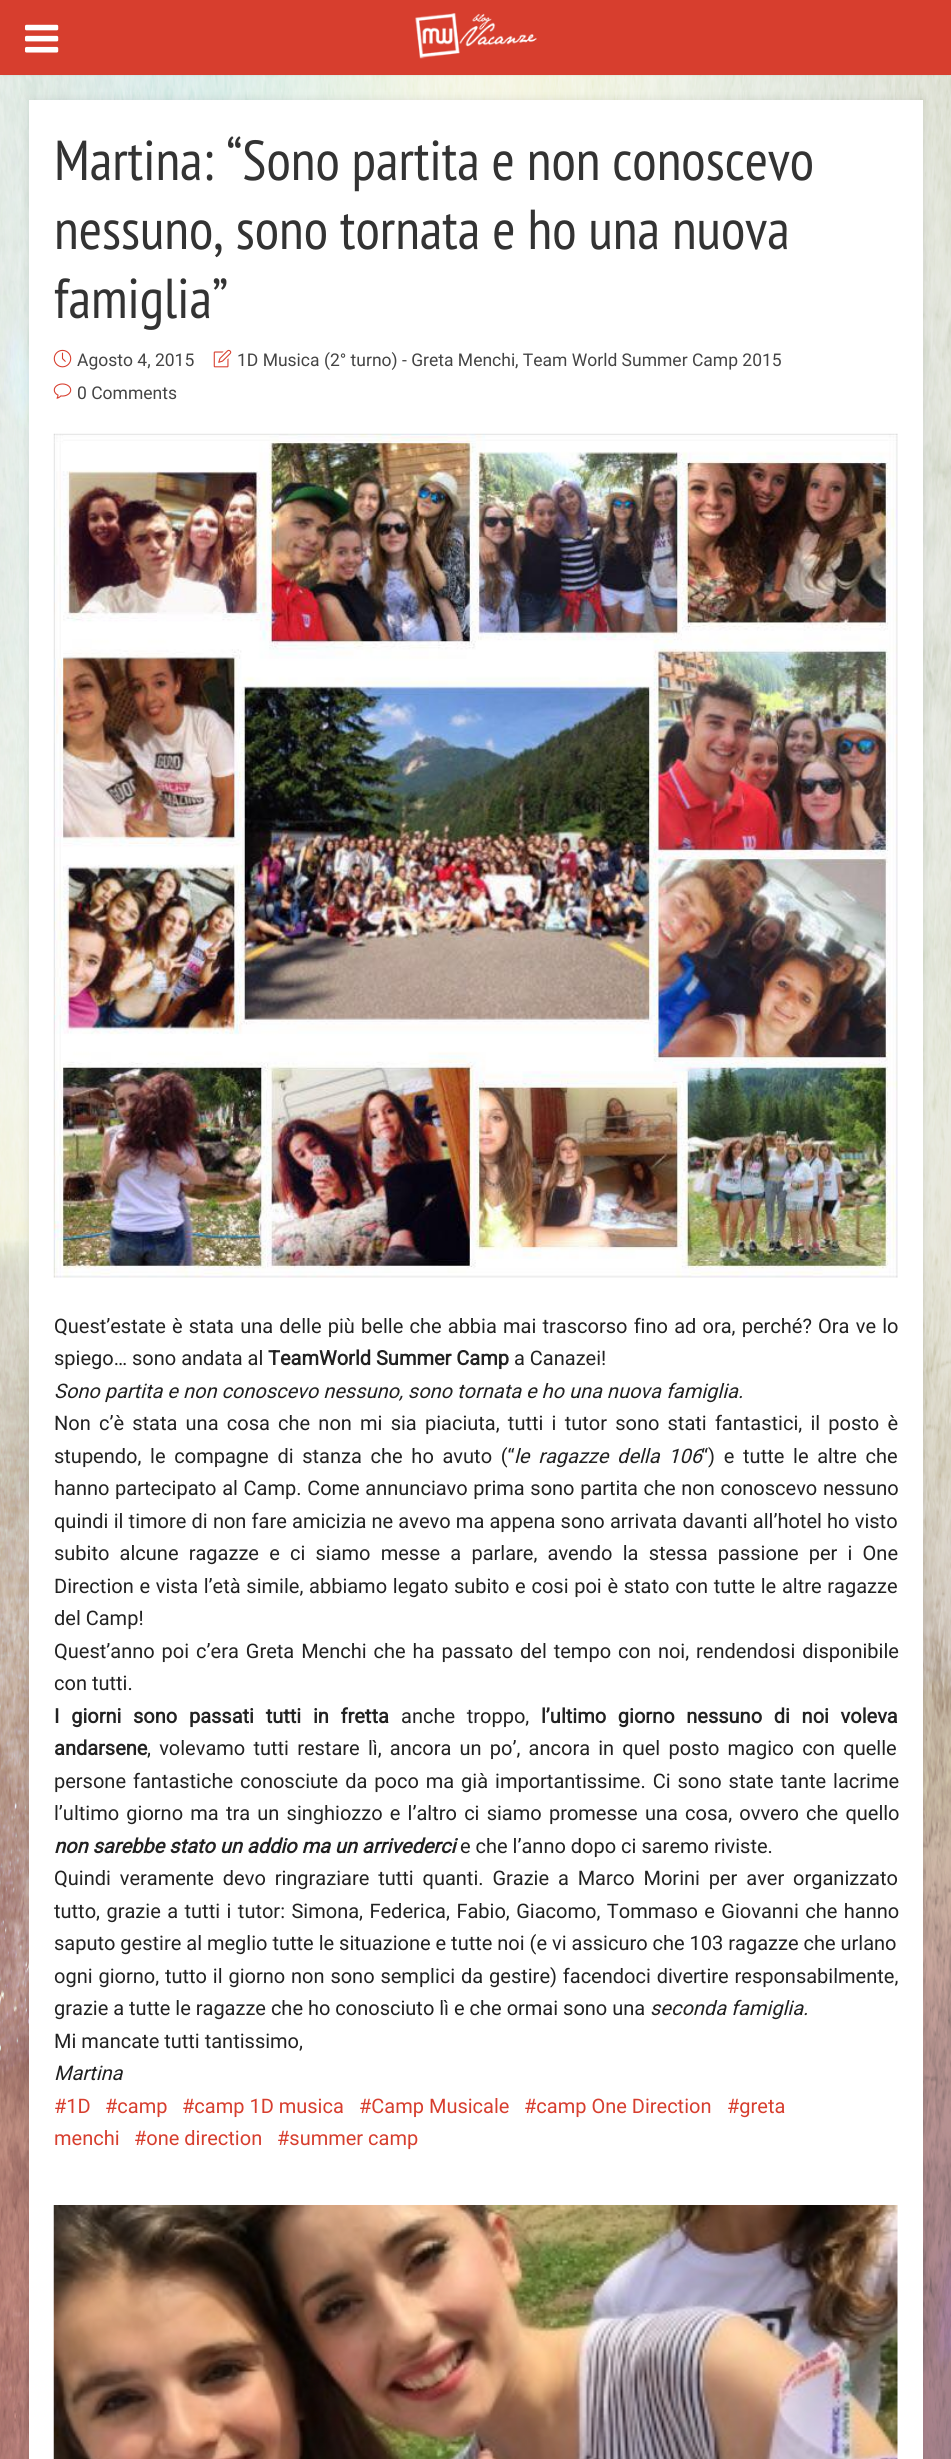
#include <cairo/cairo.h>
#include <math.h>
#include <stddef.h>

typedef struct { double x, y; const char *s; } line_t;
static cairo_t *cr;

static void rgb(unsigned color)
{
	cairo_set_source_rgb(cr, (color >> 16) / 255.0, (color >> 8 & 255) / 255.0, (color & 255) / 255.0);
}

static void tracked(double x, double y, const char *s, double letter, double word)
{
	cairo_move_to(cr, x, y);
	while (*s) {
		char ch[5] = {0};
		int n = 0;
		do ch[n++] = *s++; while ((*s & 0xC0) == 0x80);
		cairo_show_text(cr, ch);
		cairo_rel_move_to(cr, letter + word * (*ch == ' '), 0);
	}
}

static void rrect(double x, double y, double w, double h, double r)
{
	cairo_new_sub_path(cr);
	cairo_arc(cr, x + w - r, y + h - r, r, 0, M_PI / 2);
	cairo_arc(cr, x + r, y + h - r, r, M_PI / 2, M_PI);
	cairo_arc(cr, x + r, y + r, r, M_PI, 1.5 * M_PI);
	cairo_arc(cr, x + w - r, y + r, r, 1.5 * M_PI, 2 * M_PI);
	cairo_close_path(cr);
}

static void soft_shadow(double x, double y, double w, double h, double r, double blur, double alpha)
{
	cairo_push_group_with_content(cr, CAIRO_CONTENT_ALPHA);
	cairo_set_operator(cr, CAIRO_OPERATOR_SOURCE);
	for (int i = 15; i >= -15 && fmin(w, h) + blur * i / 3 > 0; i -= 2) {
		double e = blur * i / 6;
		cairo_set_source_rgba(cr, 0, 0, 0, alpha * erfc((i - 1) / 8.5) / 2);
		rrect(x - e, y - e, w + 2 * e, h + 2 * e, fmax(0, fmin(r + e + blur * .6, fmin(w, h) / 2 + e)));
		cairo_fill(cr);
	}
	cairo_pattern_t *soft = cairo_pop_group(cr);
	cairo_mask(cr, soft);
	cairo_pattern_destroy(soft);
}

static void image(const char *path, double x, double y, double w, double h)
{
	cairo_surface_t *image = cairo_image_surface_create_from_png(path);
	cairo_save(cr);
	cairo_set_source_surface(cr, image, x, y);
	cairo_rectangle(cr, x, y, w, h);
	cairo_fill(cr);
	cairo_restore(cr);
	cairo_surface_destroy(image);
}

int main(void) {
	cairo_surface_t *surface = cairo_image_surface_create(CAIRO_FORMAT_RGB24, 951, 2459);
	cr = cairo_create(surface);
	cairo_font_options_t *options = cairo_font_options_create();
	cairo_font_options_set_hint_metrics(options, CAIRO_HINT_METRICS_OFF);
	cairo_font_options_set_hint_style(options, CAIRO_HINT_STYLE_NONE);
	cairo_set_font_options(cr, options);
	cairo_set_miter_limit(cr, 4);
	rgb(0xffffff);
	cairo_paint(cr);
	image("img/3.png", 0, 75, 951, 2384);
	rgb(0x000000);
	soft_shadow(3, 5, 946, 70, 0, 1, 0.1);
	rgb(0xd73e2e);
	cairo_rectangle(cr, 0, 0, 951, 75);
	cairo_fill(cr);
	image("img/1.png", 25, 24, 34, 29);
	image("img/2.png", 415, 13, 122, 46);
	rgb(0x000000);
	soft_shadow(29, 100, 894, 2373, 0, 4.5, 0.1);
	rgb(0xffffff);
	cairo_rectangle(cr, 29, 100, 894, 2359);
	cairo_fill(cr);
	image("img/4.png", 53, 349, 19, 19);
	image("img/5.png", 213, 349, 19, 19);
	image("img/6.png", 53, 383, 19, 16);
	image("img/7.png", 53, 433, 845, 845);
	image("img/8.png", 53, 2205, 845, 254);
	cairo_select_font_face(cr, "PT Sans Narrow", CAIRO_FONT_SLANT_NORMAL, CAIRO_FONT_WEIGHT_NORMAL);
	cairo_set_font_size(cr, 56.25);
	rgb(0x333333);
	{
		static const line_t items[] = {
			{54, 180, "Martina: “Sono partita e non conoscevo"},
			{54, 249, "nessuno, sono tornata e ho una nuova"},
			{54, 318, "famiglia”"},
		};
		for (size_t i = 0; i < sizeof items / sizeof *items; i++) {
			cairo_move_to(cr, items[i].x, items[i].y);
			cairo_show_text(cr, items[i].s);
		}
	}
	cairo_select_font_face(cr, "Roboto", CAIRO_FONT_SLANT_NORMAL, CAIRO_FONT_WEIGHT_NORMAL);
	cairo_set_font_size(cr, 17.5);
	rgb(0x444444);
	{
		static const line_t items[] = {
			{77, 366, "Agosto 4, 2015"},
			{237, 366, "1D Musica (2° turno) - Greta Menchi"},
			{515, 366, ", Team World Summer Camp 2015"},
			{77, 399, "0 Comments"},
		};
		for (size_t i = 0; i < sizeof items / sizeof *items; i++) {
			cairo_move_to(cr, items[i].x, items[i].y);
			cairo_show_text(cr, items[i].s);
		}
	}
	cairo_set_font_size(cr, 20);
	rgb(0x222222);
	tracked(54, 1333, "Quest’estate è stata una delle più belle che abbia mai trascorso fino ad ora, perché? Ora ve lo", 0, 1.25);
	cairo_move_to(cr, 54, 1365);
	cairo_show_text(cr, "spiego… sono andata al");
	cairo_select_font_face(cr, "Roboto", CAIRO_FONT_SLANT_NORMAL, CAIRO_FONT_WEIGHT_BOLD);
	cairo_move_to(cr, 268, 1365);
	cairo_show_text(cr, "TeamWorld Summer Camp");
	cairo_select_font_face(cr, "Roboto", CAIRO_FONT_SLANT_NORMAL, CAIRO_FONT_WEIGHT_NORMAL);
	cairo_move_to(cr, 514, 1365);
	cairo_show_text(cr, "a Canazei!");
	cairo_select_font_face(cr, "Roboto", CAIRO_FONT_SLANT_ITALIC, CAIRO_FONT_WEIGHT_NORMAL);
	cairo_move_to(cr, 54, 1398);
	cairo_show_text(cr, "Sono partita e non conoscevo nessuno, sono tornata e ho una nuova famiglia.");
	cairo_select_font_face(cr, "Roboto", CAIRO_FONT_SLANT_NORMAL, CAIRO_FONT_WEIGHT_NORMAL);
	tracked(54, 1430, "Non c’è stata una cosa che non mi sia piaciuta, tutti i tutor sono stati fantastici, il posto è", 0, 3.25);
	tracked(54, 1463, "stupendo, le compagne di stanza che ho avuto (“", 0, 3.75);
	cairo_select_font_face(cr, "Roboto", CAIRO_FONT_SLANT_ITALIC, CAIRO_FONT_WEIGHT_NORMAL);
	tracked(514, 1463, "le ragazze della 106", 0, 3.75);
	cairo_select_font_face(cr, "Roboto", CAIRO_FONT_SLANT_NORMAL, CAIRO_FONT_WEIGHT_NORMAL);
	tracked(701, 1463, "“) e tutte le altre che", 0, 3.75);
	tracked(54, 1495, "hanno partecipato al Camp. Come annunciavo prima sono partita che non conoscevo nessuno", 0, 0.7);
	tracked(54, 1528, "quindi il timore di non fare amicizia ne avevo ma appena sono arrivata davanti all’hotel ho visto", 0, 0.25);
	tracked(54, 1560, "subito alcune ragazze e ci siamo messe a parlare, avendo la stessa passione per i One", 0, 5.25);
	tracked(54, 1593, "Direction e vista l’età simile, abbiamo legato subito e cosi poi è stato con tutte le altre ragazze", 0, 0.75);
	cairo_move_to(cr, 54, 1625);
	cairo_show_text(cr, "del Camp!");
	tracked(54, 1658, "Quest’anno poi c’era Greta Menchi che ha passato del tempo con noi, rendendosi disponibile", 0, 2);
	cairo_move_to(cr, 54, 1690);
	cairo_show_text(cr, "con tutti.");
	cairo_select_font_face(cr, "Roboto", CAIRO_FONT_SLANT_NORMAL, CAIRO_FONT_WEIGHT_BOLD);
	tracked(54, 1723, "I giorni sono passati tutti in fretta", 0, 6.75);
	cairo_select_font_face(cr, "Roboto", CAIRO_FONT_SLANT_NORMAL, CAIRO_FONT_WEIGHT_NORMAL);
	tracked(401, 1723, "anche troppo,", 0, 6.75);
	cairo_select_font_face(cr, "Roboto", CAIRO_FONT_SLANT_NORMAL, CAIRO_FONT_WEIGHT_BOLD);
	tracked(541, 1723, "l’ultimo giorno nessuno di noi voleva", 0, 6.75);
	cairo_move_to(cr, 54, 1755);
	cairo_show_text(cr, "andarsene");
	cairo_select_font_face(cr, "Roboto", CAIRO_FONT_SLANT_NORMAL, CAIRO_FONT_WEIGHT_NORMAL);
	tracked(147, 1755, ", volevamo tutti restare lì, ancora un po’, ancora in quel posto magico con quelle", 0, 3.25);
	tracked(54, 1788, "persone fantastiche conosciute da poco ma già importantissime. Ci sono state tante lacrime", 0, 2);
	tracked(54, 1820, "l’ultimo giorno ma tra un singhiozzo e l’altro ci siamo promesse una cosa, ovvero che quello", 0, 2.25);
	cairo_select_font_face(cr, "Roboto", CAIRO_FONT_SLANT_ITALIC, CAIRO_FONT_WEIGHT_BOLD);
	cairo_move_to(cr, 54, 1853);
	cairo_show_text(cr, "non sarebbe stato un addio ma un arrivederci");
	cairo_select_font_face(cr, "Roboto", CAIRO_FONT_SLANT_NORMAL, CAIRO_FONT_WEIGHT_NORMAL);
	cairo_move_to(cr, 460, 1853);
	cairo_show_text(cr, "e che l’anno dopo ci saremo riviste.");
	tracked(54, 1885, "Quindi veramente devo ringraziare tutti quanti. Grazie a Marco Morini per aver organizzato", 0, 3.9);
	tracked(54, 1918, "tutto, grazie a tutti i tutor: Simona, Federica, Fabio, Giacomo, Tommaso e Giovanni che hanno", 0, 1.5);
	cairo_move_to(cr, 54, 1950);
	cairo_show_text(cr, "saputo gestire al meglio tutte le situazione e tutte noi (e vi assicuro che 103 ragazze che urlano");
	tracked(54, 1983, "ogni giorno, tutto il giorno non sono semplici da gestire) facendoci divertire responsabilmente,", 0, 0.9);
	cairo_move_to(cr, 54, 2015);
	cairo_show_text(cr, "grazie a tutte le ragazze che ho conosciuto lì e che ormai sono una");
	cairo_select_font_face(cr, "Roboto", CAIRO_FONT_SLANT_ITALIC, CAIRO_FONT_WEIGHT_NORMAL);
	cairo_move_to(cr, 650, 2015);
	cairo_show_text(cr, "seconda famiglia.");
	cairo_select_font_face(cr, "Roboto", CAIRO_FONT_SLANT_NORMAL, CAIRO_FONT_WEIGHT_NORMAL);
	cairo_move_to(cr, 54, 2048);
	cairo_show_text(cr, "Mi mancate tutti tantissimo,");
	cairo_select_font_face(cr, "Roboto", CAIRO_FONT_SLANT_ITALIC, CAIRO_FONT_WEIGHT_NORMAL);
	cairo_move_to(cr, 54, 2080);
	cairo_show_text(cr, "Martina");
	cairo_select_font_face(cr, "Roboto", CAIRO_FONT_SLANT_NORMAL, CAIRO_FONT_WEIGHT_NORMAL);
	rgb(0xd73e2e);
	{
		static const line_t items[] = {
			{54, 2113, "#1D"},
			{105, 2113, "#camp"},
			{182, 2113, "#camp 1D musica"},
			{359, 2113, "#Camp Musicale"},
			{524, 2113, "#camp One Direction"},
			{727, 2113, "#greta"},
			{54, 2145, "menchi"},
			{134, 2145, "#one direction"},
			{277, 2145, "#summer camp"},
		};
		for (size_t i = 0; i < sizeof items / sizeof *items; i++) {
			cairo_move_to(cr, items[i].x, items[i].y);
			cairo_show_text(cr, items[i].s);
		}
	}
	cairo_surface_write_to_png(surface, "page.png");
	cairo_font_options_destroy(options);
	cairo_destroy(cr);
	cairo_surface_destroy(surface);
	return 0;
}
